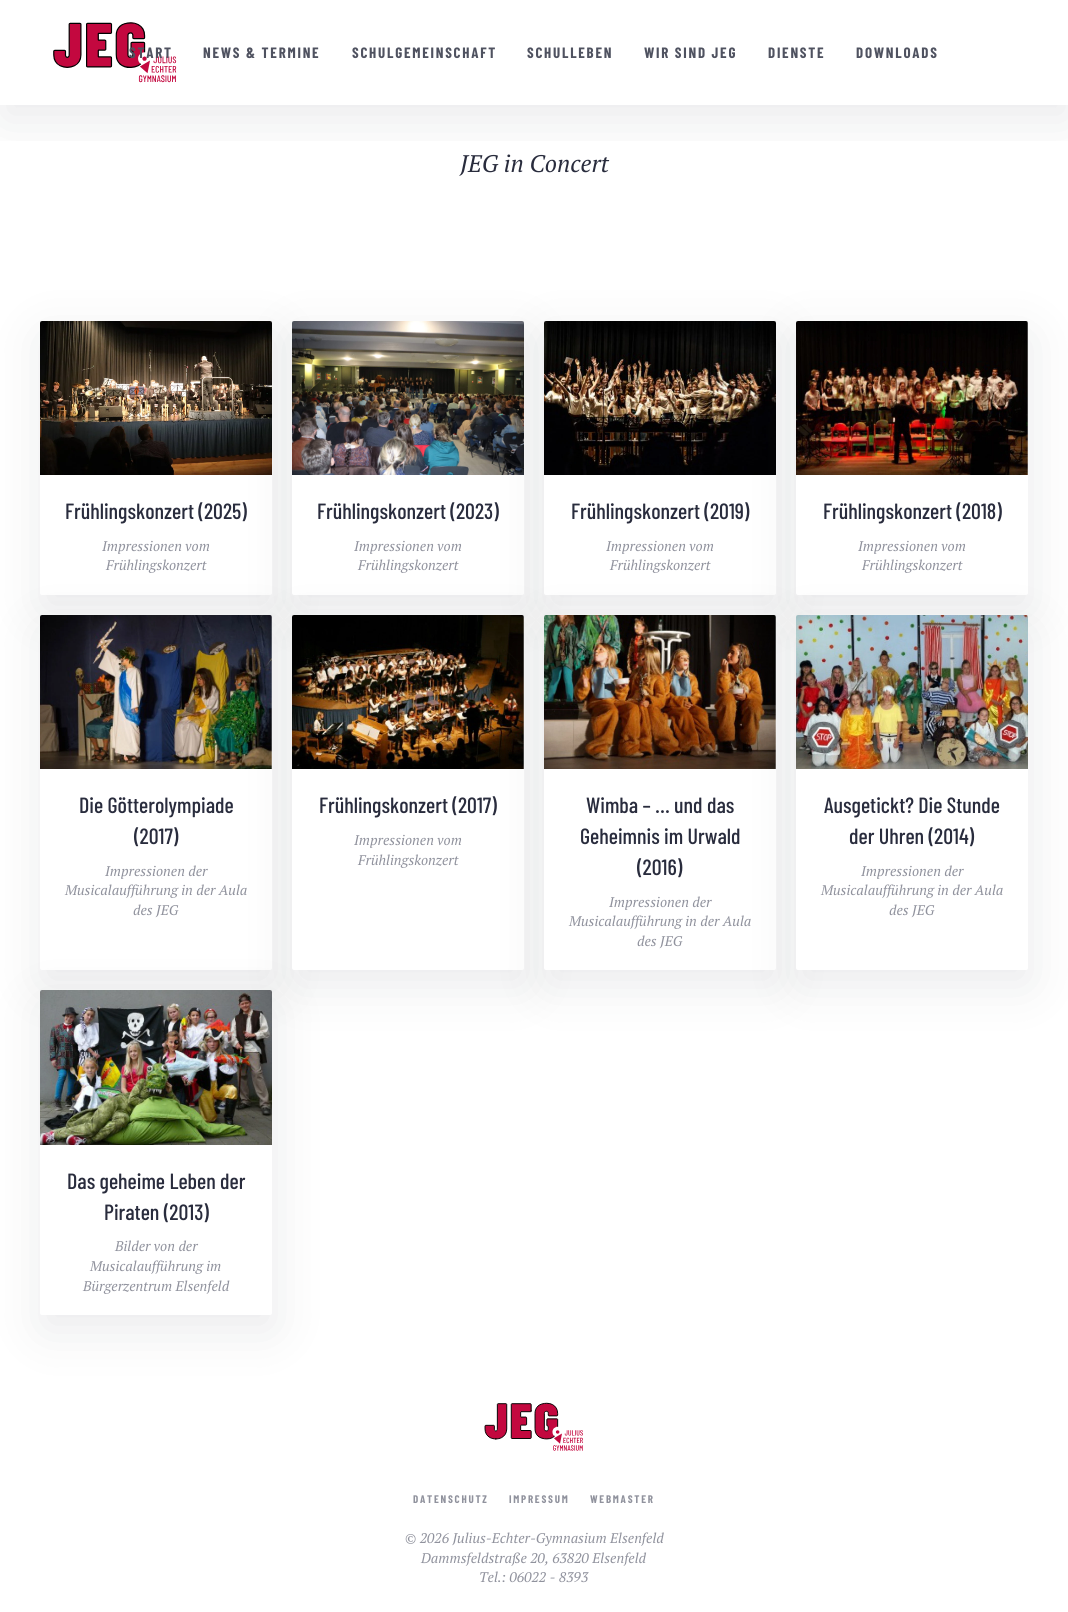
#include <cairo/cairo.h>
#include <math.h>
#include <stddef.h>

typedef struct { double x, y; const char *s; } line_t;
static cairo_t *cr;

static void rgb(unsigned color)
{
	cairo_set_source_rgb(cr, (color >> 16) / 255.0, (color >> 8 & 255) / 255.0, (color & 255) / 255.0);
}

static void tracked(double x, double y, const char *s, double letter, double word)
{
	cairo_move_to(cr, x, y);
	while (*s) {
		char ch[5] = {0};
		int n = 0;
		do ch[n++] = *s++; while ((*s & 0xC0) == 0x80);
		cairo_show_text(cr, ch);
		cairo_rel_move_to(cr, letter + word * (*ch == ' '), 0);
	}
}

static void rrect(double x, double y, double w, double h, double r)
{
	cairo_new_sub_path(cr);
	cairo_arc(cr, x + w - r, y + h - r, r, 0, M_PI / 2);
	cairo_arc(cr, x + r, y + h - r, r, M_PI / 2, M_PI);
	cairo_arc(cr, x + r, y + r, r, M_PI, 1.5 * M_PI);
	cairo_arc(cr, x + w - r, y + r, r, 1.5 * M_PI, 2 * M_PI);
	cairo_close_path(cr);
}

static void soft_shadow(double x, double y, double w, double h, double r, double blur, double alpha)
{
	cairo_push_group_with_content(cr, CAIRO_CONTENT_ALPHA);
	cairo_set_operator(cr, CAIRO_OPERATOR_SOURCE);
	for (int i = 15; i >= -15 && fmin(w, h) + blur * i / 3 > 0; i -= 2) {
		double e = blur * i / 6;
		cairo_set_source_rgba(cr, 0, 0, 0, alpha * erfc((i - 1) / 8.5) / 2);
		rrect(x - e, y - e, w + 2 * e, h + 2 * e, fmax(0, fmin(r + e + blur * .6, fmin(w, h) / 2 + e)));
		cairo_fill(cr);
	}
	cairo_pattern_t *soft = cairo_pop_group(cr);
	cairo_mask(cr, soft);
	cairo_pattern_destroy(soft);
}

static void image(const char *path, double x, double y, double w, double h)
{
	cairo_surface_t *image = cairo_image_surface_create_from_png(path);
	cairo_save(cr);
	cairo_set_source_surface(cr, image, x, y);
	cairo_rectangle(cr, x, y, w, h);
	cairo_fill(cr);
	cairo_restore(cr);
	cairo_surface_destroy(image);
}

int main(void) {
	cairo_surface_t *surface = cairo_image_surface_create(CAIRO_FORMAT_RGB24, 1068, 1612);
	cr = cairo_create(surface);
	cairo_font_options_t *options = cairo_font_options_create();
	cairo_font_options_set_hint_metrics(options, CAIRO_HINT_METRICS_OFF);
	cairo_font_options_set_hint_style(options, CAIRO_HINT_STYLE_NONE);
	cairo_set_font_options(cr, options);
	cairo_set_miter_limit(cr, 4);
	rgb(0xffffff);
	cairo_paint(cr);
	cairo_save(cr);
	cairo_rectangle(cr, 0, 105, 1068, 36);
	cairo_clip(cr);
	rgb(0x292c3d);
	soft_shadow(2, 15, 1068, 105, 0, 25, 0.1);
	cairo_restore(cr);
	image("img/1.png", 53, 22, 124, 61);
	rgb(0x292c3d);
	soft_shadow(42, 336, 232, 274, 2, 25, 0.1);
	rgb(0xffffff);
	rrect(40, 321, 232, 274, 2);
	cairo_fill(cr);
	image("img/2.png", 40, 321, 232, 154);
	rgb(0x292c3d);
	soft_shadow(294, 336, 232, 274, 2, 25, 0.1);
	rgb(0xffffff);
	rrect(292, 321, 232, 274, 2);
	cairo_fill(cr);
	image("img/3.png", 292, 321, 232, 154);
	rgb(0x292c3d);
	soft_shadow(546, 336, 232, 274, 2, 25, 0.1);
	rgb(0xffffff);
	rrect(544, 321, 232, 274, 2);
	cairo_fill(cr);
	image("img/4.png", 544, 321, 232, 154);
	rgb(0x292c3d);
	soft_shadow(798, 336, 232, 274, 2, 25, 0.1);
	rgb(0xffffff);
	rrect(796, 321, 232, 274, 2);
	cairo_fill(cr);
	image("img/5.png", 796, 321, 232, 154);
	rgb(0x292c3d);
	soft_shadow(42, 630, 232, 355, 2, 25, 0.1);
	rgb(0xffffff);
	rrect(40, 615, 232, 355, 2);
	cairo_fill(cr);
	image("img/6.png", 40, 615, 232, 154);
	rgb(0x292c3d);
	soft_shadow(294, 630, 232, 355, 2, 25, 0.1);
	rgb(0xffffff);
	rrect(292, 615, 232, 355, 2);
	cairo_fill(cr);
	image("img/7.png", 292, 615, 232, 154);
	rgb(0x292c3d);
	soft_shadow(546, 630, 232, 355, 2, 25, 0.1);
	rgb(0xffffff);
	rrect(544, 615, 232, 355, 2);
	cairo_fill(cr);
	image("img/8.png", 544, 615, 232, 154);
	rgb(0x292c3d);
	soft_shadow(798, 630, 232, 355, 2, 25, 0.1);
	rgb(0xffffff);
	rrect(796, 615, 232, 355, 2);
	cairo_fill(cr);
	image("img/9.png", 796, 615, 232, 154);
	rgb(0x292c3d);
	soft_shadow(42, 1005, 232, 325, 2, 25, 0.1);
	rgb(0xffffff);
	rrect(40, 990, 232, 325, 2);
	cairo_fill(cr);
	image("img/10.png", 40, 990, 232, 155);
	image("img/11.png", 484, 1402, 99, 49);
	cairo_select_font_face(cr, "Barlow Condensed", CAIRO_FONT_SLANT_NORMAL, CAIRO_FONT_WEIGHT_BOLD);
	cairo_set_font_size(cr, 15);
	rgb(0x4f5260);
	{
		static const line_t items[] = {
			{129, 58, "START"},
			{203, 58, "NEWS & TERMINE"},
			{352, 58, "SCHULGEMEINSCHAFT"},
			{527, 58, "SCHULLEBEN"},
			{644, 58, "WIR SIND JEG"},
			{768, 58, "DIENSTE"},
			{856, 58, "DOWNLOADS"},
		};
		for (size_t i = 0; i < sizeof items / sizeof *items; i++) {
			tracked(items[i].x, items[i].y, items[i].s, 1.75, 0);
		}
	}
	cairo_select_font_face(cr, "PT Serif", CAIRO_FONT_SLANT_ITALIC, CAIRO_FONT_WEIGHT_NORMAL);
	cairo_set_font_size(cr, 24);
	rgb(0x292c3d);
	cairo_move_to(cr, 460, 172);
	cairo_show_text(cr, "JEG in Concert");
	cairo_select_font_face(cr, "Barlow Condensed Medium", CAIRO_FONT_SLANT_NORMAL, CAIRO_FONT_WEIGHT_NORMAL);
	cairo_set_font_size(cr, 22);
	cairo_move_to(cr, 65, 519);
	cairo_show_text(cr, "Frühlingskonzert (2025)");
	cairo_select_font_face(cr, "PT Serif", CAIRO_FONT_SLANT_ITALIC, CAIRO_FONT_WEIGHT_NORMAL);
	cairo_set_font_size(cr, 14);
	rgb(0x90929d);
	cairo_move_to(cr, 102, 551);
	cairo_show_text(cr, "Impressionen vom");
	cairo_move_to(cr, 106, 570);
	cairo_show_text(cr, "Frühlingskonzert");
	cairo_select_font_face(cr, "Barlow Condensed Medium", CAIRO_FONT_SLANT_NORMAL, CAIRO_FONT_WEIGHT_NORMAL);
	cairo_set_font_size(cr, 22);
	rgb(0x292c3d);
	cairo_move_to(cr, 317, 519);
	cairo_show_text(cr, "Frühlingskonzert (2023)");
	cairo_select_font_face(cr, "PT Serif", CAIRO_FONT_SLANT_ITALIC, CAIRO_FONT_WEIGHT_NORMAL);
	cairo_set_font_size(cr, 14);
	rgb(0x90929d);
	cairo_move_to(cr, 354, 551);
	cairo_show_text(cr, "Impressionen vom");
	cairo_move_to(cr, 358, 570);
	cairo_show_text(cr, "Frühlingskonzert");
	cairo_select_font_face(cr, "Barlow Condensed Medium", CAIRO_FONT_SLANT_NORMAL, CAIRO_FONT_WEIGHT_NORMAL);
	cairo_set_font_size(cr, 22);
	rgb(0x292c3d);
	cairo_move_to(cr, 571, 519);
	cairo_show_text(cr, "Frühlingskonzert (2019)");
	cairo_select_font_face(cr, "PT Serif", CAIRO_FONT_SLANT_ITALIC, CAIRO_FONT_WEIGHT_NORMAL);
	cairo_set_font_size(cr, 14);
	rgb(0x90929d);
	cairo_move_to(cr, 606, 551);
	cairo_show_text(cr, "Impressionen vom");
	cairo_move_to(cr, 610, 570);
	cairo_show_text(cr, "Frühlingskonzert");
	cairo_select_font_face(cr, "Barlow Condensed Medium", CAIRO_FONT_SLANT_NORMAL, CAIRO_FONT_WEIGHT_NORMAL);
	cairo_set_font_size(cr, 22);
	rgb(0x292c3d);
	cairo_move_to(cr, 823, 519);
	cairo_show_text(cr, "Frühlingskonzert (2018)");
	cairo_select_font_face(cr, "PT Serif", CAIRO_FONT_SLANT_ITALIC, CAIRO_FONT_WEIGHT_NORMAL);
	cairo_set_font_size(cr, 14);
	rgb(0x90929d);
	cairo_move_to(cr, 858, 551);
	cairo_show_text(cr, "Impressionen vom");
	cairo_move_to(cr, 862, 570);
	cairo_show_text(cr, "Frühlingskonzert");
	cairo_select_font_face(cr, "Barlow Condensed Medium", CAIRO_FONT_SLANT_NORMAL, CAIRO_FONT_WEIGHT_NORMAL);
	cairo_set_font_size(cr, 22);
	rgb(0x292c3d);
	cairo_move_to(cr, 79, 813);
	cairo_show_text(cr, "Die Götterolympiade");
	cairo_move_to(cr, 134, 844);
	cairo_show_text(cr, "(2017)");
	cairo_select_font_face(cr, "PT Serif", CAIRO_FONT_SLANT_ITALIC, CAIRO_FONT_WEIGHT_NORMAL);
	cairo_set_font_size(cr, 14);
	rgb(0x90929d);
	{
		static const line_t items[] = {
			{105, 876, "Impressionen der"},
			{65, 895, "Musicalaufführung in der Aula"},
			{133, 915, "des JEG"},
		};
		for (size_t i = 0; i < sizeof items / sizeof *items; i++) {
			cairo_move_to(cr, items[i].x, items[i].y);
			cairo_show_text(cr, items[i].s);
		}
	}
	cairo_select_font_face(cr, "Barlow Condensed Medium", CAIRO_FONT_SLANT_NORMAL, CAIRO_FONT_WEIGHT_NORMAL);
	cairo_set_font_size(cr, 22);
	rgb(0x292c3d);
	cairo_move_to(cr, 319, 813);
	cairo_show_text(cr, "Frühlingskonzert (2017)");
	cairo_select_font_face(cr, "PT Serif", CAIRO_FONT_SLANT_ITALIC, CAIRO_FONT_WEIGHT_NORMAL);
	cairo_set_font_size(cr, 14);
	rgb(0x90929d);
	cairo_move_to(cr, 354, 845);
	cairo_show_text(cr, "Impressionen vom");
	cairo_move_to(cr, 358, 865);
	cairo_show_text(cr, "Frühlingskonzert");
	cairo_select_font_face(cr, "Barlow Condensed Medium", CAIRO_FONT_SLANT_NORMAL, CAIRO_FONT_WEIGHT_NORMAL);
	cairo_set_font_size(cr, 22);
	rgb(0x292c3d);
	{
		static const line_t items[] = {
			{586, 813, "Wimba – … und das"},
			{580, 844, "Geheimnis im Urwald"},
			{637, 875, "(2016)"},
		};
		for (size_t i = 0; i < sizeof items / sizeof *items; i++) {
			cairo_move_to(cr, items[i].x, items[i].y);
			cairo_show_text(cr, items[i].s);
		}
	}
	cairo_select_font_face(cr, "PT Serif", CAIRO_FONT_SLANT_ITALIC, CAIRO_FONT_WEIGHT_NORMAL);
	cairo_set_font_size(cr, 14);
	rgb(0x90929d);
	{
		static const line_t items[] = {
			{609, 907, "Impressionen der"},
			{569, 926, "Musicalaufführung in der Aula"},
			{637, 946, "des JEG"},
		};
		for (size_t i = 0; i < sizeof items / sizeof *items; i++) {
			cairo_move_to(cr, items[i].x, items[i].y);
			cairo_show_text(cr, items[i].s);
		}
	}
	cairo_select_font_face(cr, "Barlow Condensed Medium", CAIRO_FONT_SLANT_NORMAL, CAIRO_FONT_WEIGHT_NORMAL);
	cairo_set_font_size(cr, 22);
	rgb(0x292c3d);
	cairo_move_to(cr, 824, 813);
	cairo_show_text(cr, "Ausgetickt? Die Stunde");
	cairo_move_to(cr, 849, 844);
	cairo_show_text(cr, "der Uhren (2014)");
	cairo_select_font_face(cr, "PT Serif", CAIRO_FONT_SLANT_ITALIC, CAIRO_FONT_WEIGHT_NORMAL);
	cairo_set_font_size(cr, 14);
	rgb(0x90929d);
	{
		static const line_t items[] = {
			{861, 876, "Impressionen der"},
			{821, 895, "Musicalaufführung in der Aula"},
			{889, 915, "des JEG"},
		};
		for (size_t i = 0; i < sizeof items / sizeof *items; i++) {
			cairo_move_to(cr, items[i].x, items[i].y);
			cairo_show_text(cr, items[i].s);
		}
	}
	cairo_select_font_face(cr, "Barlow Condensed Medium", CAIRO_FONT_SLANT_NORMAL, CAIRO_FONT_WEIGHT_NORMAL);
	cairo_set_font_size(cr, 22);
	rgb(0x292c3d);
	cairo_move_to(cr, 67, 1189);
	cairo_show_text(cr, "Das geheime Leben der");
	cairo_move_to(cr, 104, 1220);
	cairo_show_text(cr, "Piraten (2013)");
	cairo_select_font_face(cr, "PT Serif", CAIRO_FONT_SLANT_ITALIC, CAIRO_FONT_WEIGHT_NORMAL);
	cairo_set_font_size(cr, 14);
	rgb(0x90929d);
	{
		static const line_t items[] = {
			{115, 1251, "Bilder von der"},
			{90, 1271, "Musicalaufführung im"},
			{83, 1291, "Bürgerzentrum Elsenfeld"},
		};
		for (size_t i = 0; i < sizeof items / sizeof *items; i++) {
			cairo_move_to(cr, items[i].x, items[i].y);
			cairo_show_text(cr, items[i].s);
		}
	}
	cairo_select_font_face(cr, "Barlow Condensed", CAIRO_FONT_SLANT_NORMAL, CAIRO_FONT_WEIGHT_BOLD);
	cairo_set_font_size(cr, 11);
	{
		static const line_t items[] = {
			{413, 1503, "DATENSCHUTZ"},
			{509, 1503, "IMPRESSUM"},
			{590, 1503, "WEBMASTER"},
		};
		for (size_t i = 0; i < sizeof items / sizeof *items; i++) {
			tracked(items[i].x, items[i].y, items[i].s, 1.75, 0);
		}
	}
	cairo_select_font_face(cr, "PT Serif", CAIRO_FONT_SLANT_ITALIC, CAIRO_FONT_WEIGHT_NORMAL);
	cairo_set_font_size(cr, 14);
	{
		static const line_t items[] = {
			{405, 1543, "© 2026 Julius-Echter-Gymnasium Elsenfeld"},
			{421, 1563, "Dammsfeldstraße 20, 63820 Elsenfeld"},
			{479, 1582, "Tel.: 06022 - 8393"},
		};
		for (size_t i = 0; i < sizeof items / sizeof *items; i++) {
			cairo_move_to(cr, items[i].x, items[i].y);
			cairo_show_text(cr, items[i].s);
		}
	}
	cairo_surface_write_to_png(surface, "page.png");
	cairo_font_options_destroy(options);
	cairo_destroy(cr);
	cairo_surface_destroy(surface);
	return 0;
}
